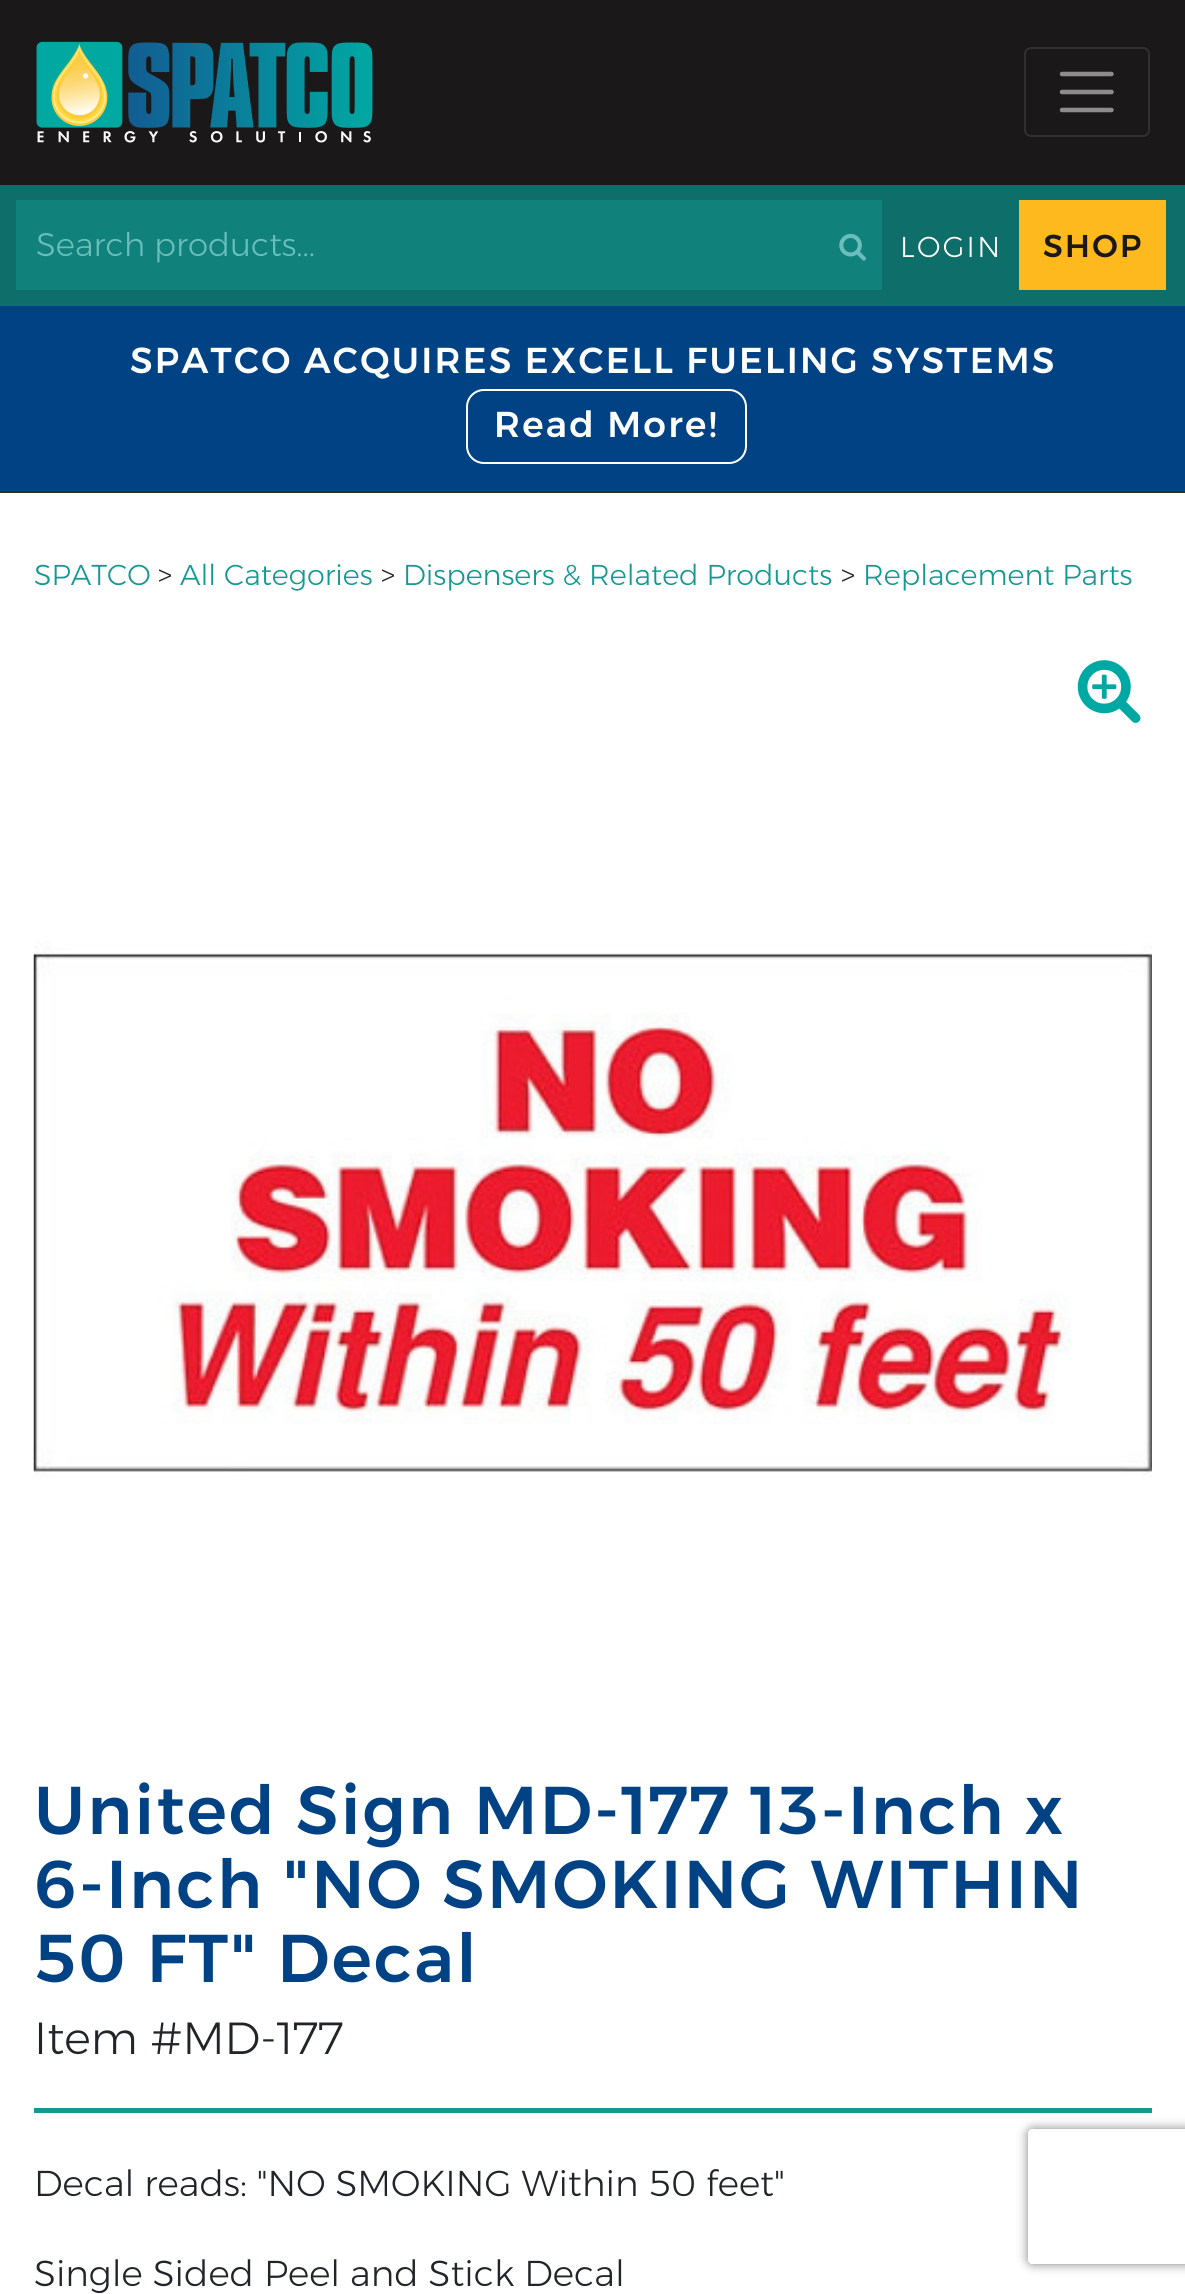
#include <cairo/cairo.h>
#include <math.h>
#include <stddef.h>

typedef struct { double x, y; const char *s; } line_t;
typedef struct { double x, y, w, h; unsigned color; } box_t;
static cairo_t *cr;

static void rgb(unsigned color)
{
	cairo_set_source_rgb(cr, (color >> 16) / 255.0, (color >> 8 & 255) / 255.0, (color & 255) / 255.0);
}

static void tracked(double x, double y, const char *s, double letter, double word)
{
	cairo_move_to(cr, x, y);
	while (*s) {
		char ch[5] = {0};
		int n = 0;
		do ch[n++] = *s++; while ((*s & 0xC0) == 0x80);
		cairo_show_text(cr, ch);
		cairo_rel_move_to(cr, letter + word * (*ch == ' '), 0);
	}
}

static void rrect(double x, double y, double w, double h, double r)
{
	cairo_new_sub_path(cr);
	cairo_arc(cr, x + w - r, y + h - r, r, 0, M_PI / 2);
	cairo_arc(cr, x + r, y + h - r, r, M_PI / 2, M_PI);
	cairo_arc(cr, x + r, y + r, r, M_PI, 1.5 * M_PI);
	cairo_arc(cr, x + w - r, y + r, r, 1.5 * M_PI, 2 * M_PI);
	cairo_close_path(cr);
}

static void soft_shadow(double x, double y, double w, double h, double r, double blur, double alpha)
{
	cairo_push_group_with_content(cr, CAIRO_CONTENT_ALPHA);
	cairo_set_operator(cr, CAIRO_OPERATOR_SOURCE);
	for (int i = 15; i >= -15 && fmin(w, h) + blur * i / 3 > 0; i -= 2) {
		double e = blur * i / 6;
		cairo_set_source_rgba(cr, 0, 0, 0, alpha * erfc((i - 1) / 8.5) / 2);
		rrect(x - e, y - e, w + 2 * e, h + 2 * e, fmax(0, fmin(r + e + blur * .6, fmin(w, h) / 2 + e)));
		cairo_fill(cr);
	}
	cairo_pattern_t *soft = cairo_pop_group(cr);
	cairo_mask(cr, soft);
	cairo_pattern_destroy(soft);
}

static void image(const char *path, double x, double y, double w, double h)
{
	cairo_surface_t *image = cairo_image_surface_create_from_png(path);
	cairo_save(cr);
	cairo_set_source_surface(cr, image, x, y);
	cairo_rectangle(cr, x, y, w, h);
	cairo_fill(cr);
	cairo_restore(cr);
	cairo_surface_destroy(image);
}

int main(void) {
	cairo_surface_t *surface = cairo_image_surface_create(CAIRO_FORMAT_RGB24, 1185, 2294);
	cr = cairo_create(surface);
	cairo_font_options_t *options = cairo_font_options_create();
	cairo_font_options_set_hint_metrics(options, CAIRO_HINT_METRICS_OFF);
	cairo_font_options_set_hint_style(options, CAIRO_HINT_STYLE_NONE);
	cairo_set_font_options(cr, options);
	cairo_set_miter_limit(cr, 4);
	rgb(0xffffff);
	cairo_paint(cr);
	rgb(0x1a1818);
	cairo_rectangle(cr, 0, 0, 1185, 185);
	cairo_fill(cr);
	image("img/1.png", 36, 41, 337, 102);
	rrect(1025, 48, 124, 88, 6);
	rgb(0x312f2f);
	cairo_stroke(cr);
	cairo_new_path(cr);
	cairo_move_to(cr, 1062, 74);
	cairo_line_to(cr, 1111.5, 74);
	cairo_move_to(cr, 1062, 92);
	cairo_line_to(cr, 1111.5, 92);
	cairo_move_to(cr, 1062, 110);
	cairo_line_to(cr, 1111.5, 110);
	rgb(0x8d8c8c);
	cairo_set_line_width(cr, 4.5);
	cairo_set_line_cap(cr, CAIRO_LINE_CAP_ROUND);
	cairo_stroke(cr);
	rgb(0x0e6e69);
	cairo_rectangle(cr, 0, 185, 1185, 121);
	cairo_fill(cr);
	rgb(0x11817c);
	cairo_rectangle(cr, 16, 200, 866, 90);
	cairo_fill(cr);
	image("img/2.png", 839, 233, 27, 28);
	{
		static const box_t items[] = {
			{1019, 200, 147, 90, 0xfdb91e},
			{0, 306, 1185, 185, 0x004284},
			{0, 491, 1185, 2, 0x2d2d2d},
		};
		for (size_t i = 0; i < sizeof items / sizeof *items; i++) {
			rgb(items[i].color);
			cairo_rectangle(cr, items[i].x, items[i].y, items[i].w, items[i].h);
			cairo_fill(cr);
		}
	}
	rrect(467, 390, 279, 73, 17);
	rgb(0xffffff);
	cairo_set_line_width(cr, 2);
	cairo_set_line_cap(cr, CAIRO_LINE_CAP_BUTT);
	cairo_stroke(cr);
	image("img/3.png", 1077, 660, 64, 63);
	image("img/4.png", 33, 941, 1119, 537);
	rgb(0x149892);
	cairo_rectangle(cr, 34, 2108, 1118, 5);
	cairo_fill(cr);
	cairo_save(cr);
	cairo_set_fill_rule(cr, CAIRO_FILL_RULE_EVEN_ODD);
	cairo_new_path(cr);
	cairo_move_to(cr, 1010, 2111);
	cairo_line_to(cr, 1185, 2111);
	cairo_line_to(cr, 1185, 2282);
	cairo_line_to(cr, 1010, 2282);
	cairo_close_path(cr);
	cairo_move_to(cr, 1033, 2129);
	cairo_line_to(cr, 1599, 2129);
	cairo_curve_to(cr, 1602, 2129, 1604, 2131, 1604, 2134);
	cairo_line_to(cr, 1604, 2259);
	cairo_curve_to(cr, 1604, 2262, 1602, 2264, 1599, 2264);
	cairo_line_to(cr, 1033, 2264);
	cairo_curve_to(cr, 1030, 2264, 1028, 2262, 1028, 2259);
	cairo_line_to(cr, 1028, 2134);
	cairo_curve_to(cr, 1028, 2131, 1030, 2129, 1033, 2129);
	cairo_close_path(cr);
	cairo_clip(cr);
	rgb(0x808080);
	soft_shadow(1028, 2129, 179, 135, 5, 5.5, 1);
	cairo_restore(cr);
	cairo_select_font_face(cr, "Montserrat Light", CAIRO_FONT_SLANT_NORMAL, CAIRO_FONT_WEIGHT_NORMAL);
	cairo_set_font_size(cr, 32.5);
	rgb(0x6abebb);
	cairo_move_to(cr, 36, 256);
	cairo_show_text(cr, "Search products...");
	cairo_set_font_size(cr, 28.75);
	rgb(0xffffff);
	tracked(900, 257, "LOGIN", 2.25, 0);
	cairo_select_font_face(cr, "Montserrat Medium", CAIRO_FONT_SLANT_NORMAL, CAIRO_FONT_WEIGHT_NORMAL);
	cairo_set_font_size(cr, 31.5);
	rgb(0x1a1818);
	tracked(1043, 257, "SHOP", 2.25, 0);
	cairo_set_font_size(cr, 36);
	rgb(0xffffff);
	tracked(130, 373, "SPATCO ACQUIRES EXCELL FUELING SYSTEMS", 2.25, 0);
	tracked(494, 437, "Read More!", 2.25, 0);
	cairo_select_font_face(cr, "Montserrat Light", CAIRO_FONT_SLANT_NORMAL, CAIRO_FONT_WEIGHT_NORMAL);
	cairo_set_font_size(cr, 28.75);
	rgb(0x149892);
	cairo_move_to(cr, 34, 585);
	cairo_show_text(cr, "SPATCO");
	rgb(0x212529);
	cairo_move_to(cr, 158, 585);
	cairo_show_text(cr, ">");
	rgb(0x149892);
	cairo_move_to(cr, 180, 585);
	cairo_show_text(cr, "All Categories");
	rgb(0x212529);
	cairo_move_to(cr, 381, 585);
	cairo_show_text(cr, ">");
	rgb(0x149892);
	cairo_move_to(cr, 403, 585);
	cairo_show_text(cr, "Dispensers & Related Products");
	rgb(0x212529);
	cairo_move_to(cr, 841, 585);
	cairo_show_text(cr, ">");
	rgb(0x149892);
	cairo_move_to(cr, 863, 585);
	cairo_show_text(cr, "Replacement Parts");
	cairo_select_font_face(cr, "Montserrat Medium", CAIRO_FONT_SLANT_NORMAL, CAIRO_FONT_WEIGHT_NORMAL);
	cairo_set_font_size(cr, 67.5);
	rgb(0x004284);
	{
		static const line_t items[] = {
			{34, 1834, "United Sign MD-177 13-Inch x"},
			{34, 1908, "6-Inch \"NO SMOKING WITHIN"},
			{34, 1982, "50 FT\" Decal"},
		};
		for (size_t i = 0; i < sizeof items / sizeof *items; i++) {
			tracked(items[i].x, items[i].y, items[i].s, 2.25, 0);
		}
	}
	cairo_select_font_face(cr, "Montserrat Light", CAIRO_FONT_SLANT_NORMAL, CAIRO_FONT_WEIGHT_NORMAL);
	cairo_set_font_size(cr, 45);
	rgb(0x212529);
	cairo_move_to(cr, 34, 2054);
	cairo_show_text(cr, "Item #MD-177");
	cairo_set_font_size(cr, 36);
	cairo_move_to(cr, 34, 2196);
	cairo_show_text(cr, "Decal reads: \"NO SMOKING Within 50 feet\"");
	cairo_move_to(cr, 34, 2286);
	cairo_show_text(cr, "Single Sided Peel and Stick Decal");
	cairo_surface_write_to_png(surface, "page.png");
	cairo_font_options_destroy(options);
	cairo_destroy(cr);
	cairo_surface_destroy(surface);
	return 0;
}
